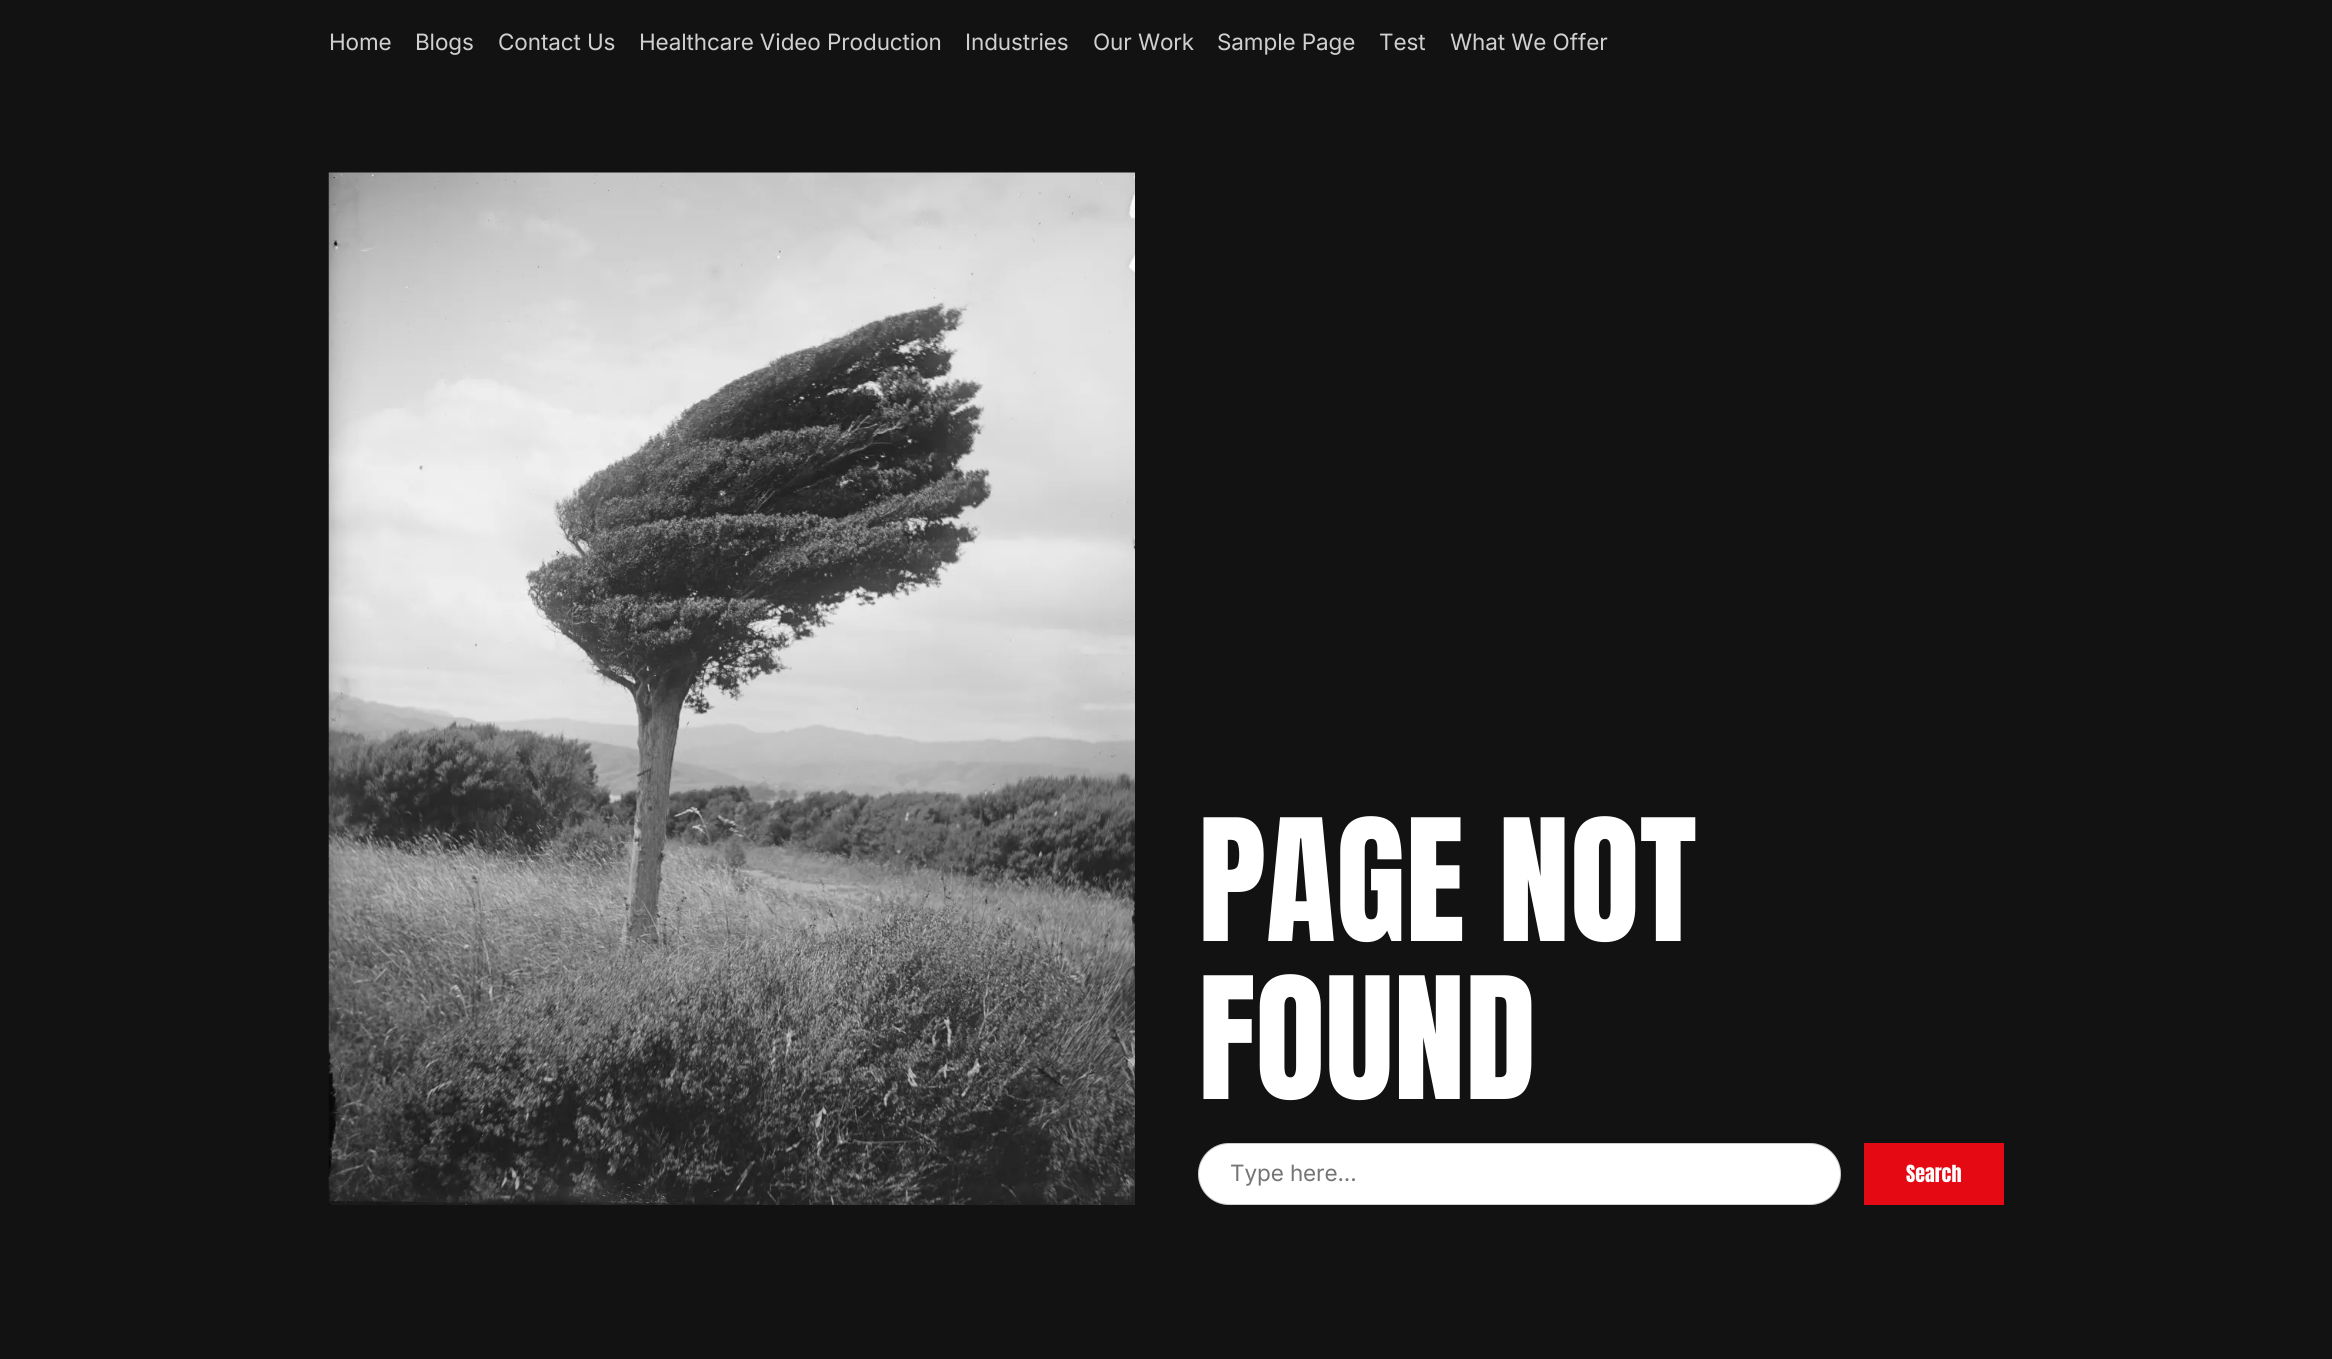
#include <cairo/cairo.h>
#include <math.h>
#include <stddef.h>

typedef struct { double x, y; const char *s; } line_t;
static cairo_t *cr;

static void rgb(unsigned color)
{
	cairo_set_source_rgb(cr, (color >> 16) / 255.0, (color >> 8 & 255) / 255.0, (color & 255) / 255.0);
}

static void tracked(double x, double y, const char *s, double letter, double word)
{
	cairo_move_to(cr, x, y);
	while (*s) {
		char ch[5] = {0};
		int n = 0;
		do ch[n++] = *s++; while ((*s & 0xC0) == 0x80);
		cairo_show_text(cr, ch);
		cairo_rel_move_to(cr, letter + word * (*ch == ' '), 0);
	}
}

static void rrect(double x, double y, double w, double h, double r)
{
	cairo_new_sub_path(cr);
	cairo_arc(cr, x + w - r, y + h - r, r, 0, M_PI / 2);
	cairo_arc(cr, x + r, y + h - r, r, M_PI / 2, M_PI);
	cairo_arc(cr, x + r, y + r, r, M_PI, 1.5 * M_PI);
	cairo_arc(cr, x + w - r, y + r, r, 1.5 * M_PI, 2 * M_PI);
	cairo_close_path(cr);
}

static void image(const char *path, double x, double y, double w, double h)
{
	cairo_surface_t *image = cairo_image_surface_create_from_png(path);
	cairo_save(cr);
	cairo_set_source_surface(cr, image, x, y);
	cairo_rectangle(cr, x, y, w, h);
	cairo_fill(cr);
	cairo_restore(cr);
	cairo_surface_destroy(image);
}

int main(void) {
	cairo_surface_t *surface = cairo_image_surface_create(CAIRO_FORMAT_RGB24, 2332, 1359);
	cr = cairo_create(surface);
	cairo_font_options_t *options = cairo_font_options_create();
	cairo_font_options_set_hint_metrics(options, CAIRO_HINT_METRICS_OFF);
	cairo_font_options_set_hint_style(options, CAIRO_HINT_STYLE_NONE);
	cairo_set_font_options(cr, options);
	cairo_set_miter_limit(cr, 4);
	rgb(0x121212);
	cairo_paint(cr);
	image("img/1.png", 328, 172, 807, 1033);
	rgb(0xffffff);
	rrect(1198, 1143, 643, 62, 31);
	cairo_fill(cr);
	rrect(1198.5, 1143.5, 642, 61, 30.5);
	cairo_set_source_rgba(cr, 0, 0, 0, 0.2);
	cairo_set_line_width(cr, 1);
	cairo_stroke(cr);
	rgb(0xe50914);
	cairo_rectangle(cr, 1864, 1143, 140, 62);
	cairo_fill(cr);
	cairo_select_font_face(cr, "Inter", CAIRO_FONT_SLANT_NORMAL, CAIRO_FONT_WEIGHT_NORMAL);
	cairo_set_font_size(cr, 22.5);
	rgb(0xd0d0d0);
	{
		static const line_t items[] = {
			{329, 50, "Home"},
			{415, 50, "Blogs"},
			{498, 50, "Contact Us"},
			{639, 50, "Healthcare Video Production"},
			{965, 50, "Industries"},
			{1093, 50, "Our Work"},
			{1217, 50, "Sample Page"},
			{1379, 50, "Test"},
			{1450, 50, "What We Offer"},
		};
		for (size_t i = 0; i < sizeof items / sizeof *items; i++) {
			tracked(items[i].x, items[i].y, items[i].s, -0.1, 0);
		}
	}
	cairo_select_font_face(cr, "Anton", CAIRO_FONT_SLANT_NORMAL, CAIRO_FONT_WEIGHT_NORMAL);
	cairo_set_font_size(cr, 144);
	rgb(0xffffff);
	tracked(1198, 941, "PAGE NOT", -0.1, 0);
	tracked(1198, 1099, "FOUND", -0.1, 0);
	cairo_select_font_face(cr, "Inter", CAIRO_FONT_SLANT_NORMAL, CAIRO_FONT_WEIGHT_NORMAL);
	cairo_set_font_size(cr, 22.5);
	rgb(0x757575);
	tracked(1230, 1181, "Type here...", -0.1, 0);
	cairo_select_font_face(cr, "Anton", CAIRO_FONT_SLANT_NORMAL, CAIRO_FONT_WEIGHT_NORMAL);
	cairo_set_font_size(cr, 20);
	rgb(0xffffff);
	cairo_move_to(cr, 1906, 1182);
	cairo_show_text(cr, "Search");
	cairo_surface_write_to_png(surface, "page.png");
	cairo_font_options_destroy(options);
	cairo_destroy(cr);
	cairo_surface_destroy(surface);
	return 0;
}
